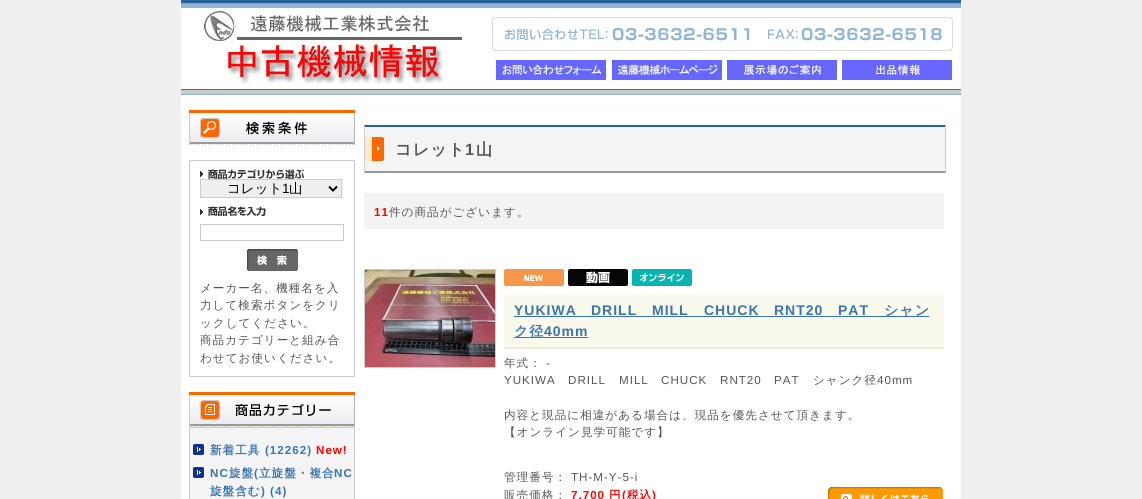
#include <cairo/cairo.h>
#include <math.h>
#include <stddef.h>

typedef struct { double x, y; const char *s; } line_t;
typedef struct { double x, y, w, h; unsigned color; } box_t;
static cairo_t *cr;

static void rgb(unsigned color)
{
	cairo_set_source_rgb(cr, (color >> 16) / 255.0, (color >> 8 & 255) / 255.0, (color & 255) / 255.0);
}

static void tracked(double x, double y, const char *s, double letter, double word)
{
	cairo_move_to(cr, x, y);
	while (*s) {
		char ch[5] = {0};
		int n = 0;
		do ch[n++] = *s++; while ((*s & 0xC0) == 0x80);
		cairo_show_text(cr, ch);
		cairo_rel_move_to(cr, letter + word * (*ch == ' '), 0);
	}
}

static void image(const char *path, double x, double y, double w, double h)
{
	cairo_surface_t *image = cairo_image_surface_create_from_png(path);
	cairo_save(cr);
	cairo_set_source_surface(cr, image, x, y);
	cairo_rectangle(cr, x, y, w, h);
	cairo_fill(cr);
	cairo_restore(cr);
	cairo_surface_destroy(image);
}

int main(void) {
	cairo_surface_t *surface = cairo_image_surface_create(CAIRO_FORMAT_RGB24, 1142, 499);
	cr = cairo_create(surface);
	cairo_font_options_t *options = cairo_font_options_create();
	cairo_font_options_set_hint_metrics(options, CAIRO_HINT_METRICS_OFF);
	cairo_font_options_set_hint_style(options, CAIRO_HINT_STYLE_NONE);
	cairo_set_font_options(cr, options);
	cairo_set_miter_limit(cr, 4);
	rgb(0xefefef);
	cairo_paint(cr);
	image("img/1.png", 181, 0, 780, 95);
	image("img/2.png", 201, 11, 261, 73);
	image("img/3.png", 496, 60, 110, 20);
	image("img/4.png", 612, 60, 110, 20);
	image("img/5.png", 727, 60, 110, 20);
	image("img/6.png", 842, 60, 110, 20);
	rgb(0xffffff);
	cairo_rectangle(cr, 181, 95, 780, 404);
	cairo_fill(cr);
	image("img/7.png", 189, 110, 166, 35);
	cairo_rectangle(cr, 189.5, 160.5, 165, 216);
	rgb(0xcccccc);
	cairo_set_line_width(cr, 1);
	cairo_stroke(cr);
	image("img/8.png", 200, 169, 104, 10);
	rgb(0xefefef);
	cairo_rectangle(cr, 200.5, 179.5, 141, 18);
	cairo_fill_preserve(cr);
	rgb(0xcccccc);
	cairo_stroke(cr);
	cairo_new_path(cr);
	cairo_move_to(cr, 329, 186.5);
	cairo_line_to(cr, 333, 190.5);
	cairo_line_to(cr, 337, 186.5);
	rgb(0x000000);
	cairo_set_line_width(cr, 2);
	cairo_stroke(cr);
	image("img/9.png", 200, 206, 66, 10);
	cairo_rectangle(cr, 200.5, 224.5, 143, 16);
	rgb(0xcccccc);
	cairo_set_line_width(cr, 1);
	cairo_stroke(cr);
	image("img/10.png", 247, 249, 51, 22);
	image("img/11.png", 189, 392, 166, 35);
	rgb(0xf4f4f4);
	cairo_rectangle(cr, 189.5, 427.5, 165, 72);
	cairo_fill_preserve(cr);
	rgb(0xcccccc);
	cairo_stroke(cr);
	image("img/12.png", 193, 444, 11, 11);
	image("img/12.png", 193, 467, 11, 11);
	rgb(0xf4f4f4);
	cairo_rectangle(cr, 365, 127, 580, 44);
	cairo_fill(cr);
	image("img/13.png", 365, 137, 19, 24);
	rgb(0x24649b);
	cairo_new_path(cr);
	cairo_move_to(cr, 364, 125);
	cairo_line_to(cr, 946, 125);
	cairo_line_to(cr, 945, 127);
	cairo_line_to(cr, 365, 127);
	cairo_close_path(cr);
	cairo_fill(cr);
	rgb(0xcccccc);
	cairo_new_path(cr);
	cairo_move_to(cr, 946, 125);
	cairo_line_to(cr, 946, 173);
	cairo_line_to(cr, 945, 171);
	cairo_line_to(cr, 945, 127);
	cairo_close_path(cr);
	cairo_fill(cr);
	rgb(0x999999);
	cairo_new_path(cr);
	cairo_move_to(cr, 946, 173);
	cairo_line_to(cr, 364, 173);
	cairo_line_to(cr, 365, 171);
	cairo_line_to(cr, 945, 171);
	cairo_close_path(cr);
	cairo_fill(cr);
	rgb(0xcccccc);
	cairo_new_path(cr);
	cairo_move_to(cr, 364, 173);
	cairo_line_to(cr, 364, 125);
	cairo_line_to(cr, 365, 127);
	cairo_line_to(cr, 365, 171);
	cairo_close_path(cr);
	cairo_fill(cr);
	rgb(0xf3f3f3);
	cairo_rectangle(cr, 364, 193, 580, 36);
	cairo_fill(cr);
	cairo_rectangle(cr, 364.5, 269.5, 131, 98);
	rgb(0xcccccc);
	cairo_stroke(cr);
	image("img/14.png", 365, 270, 130, 97);
	image("img/15.png", 504, 269, 60, 17);
	image("img/16.png", 568, 269, 60, 17);
	image("img/17.png", 632, 269, 60, 17);
	{
		static const box_t items[] = {
			{504, 295, 440, 52, 0xf9f9ec},
			{504, 347, 440, 2, 0xebebd6},
			{514, 316, 415, 1, 0x3a75af},
			{514, 337, 74, 1, 0x3a75af},
		};
		for (size_t i = 0; i < sizeof items / sizeof *items; i++) {
			rgb(items[i].color);
			cairo_rectangle(cr, items[i].x, items[i].y, items[i].w, items[i].h);
			cairo_fill(cr);
		}
	}
	image("img/18.png", 828, 487, 115, 12);
	cairo_select_font_face(cr, "WenQuanYi Zen Hei Medium", CAIRO_FONT_SLANT_NORMAL, CAIRO_FONT_WEIGHT_NORMAL);
	cairo_set_font_size(cr, 13.5);
	rgb(0x000000);
	cairo_move_to(cr, 227, 193);
	cairo_show_text(cr, "コレット");
	cairo_select_font_face(cr, "Liberation Sans", CAIRO_FONT_SLANT_NORMAL, CAIRO_FONT_WEIGHT_NORMAL);
	cairo_move_to(cr, 282, 193);
	cairo_show_text(cr, "1");
	cairo_select_font_face(cr, "WenQuanYi Zen Hei Medium", CAIRO_FONT_SLANT_NORMAL, CAIRO_FONT_WEIGHT_NORMAL);
	cairo_move_to(cr, 289, 193);
	cairo_show_text(cr, "山");
	cairo_set_font_size(cr, 11.6);
	rgb(0x555555);
	{
		static const line_t items[] = {
			{200, 292, "メーカー名、機種名を入"},
			{200, 309, "力して検索ボタンをクリ"},
			{200, 327, "ックしてください。"},
			{200, 344, "商品カテゴリーと組み合"},
			{200, 362, "わせてお使いください。"},
		};
		for (size_t i = 0; i < sizeof items / sizeof *items; i++) {
			tracked(items[i].x, items[i].y, items[i].s, 1, 0);
		}
	}
	cairo_select_font_face(cr, "WenQuanYi Zen Hei", CAIRO_FONT_SLANT_NORMAL, CAIRO_FONT_WEIGHT_BOLD);
	rgb(0x3a75af);
	tracked(210, 454, "新着工具", 1, 0);
	cairo_select_font_face(cr, "Liberation Sans", CAIRO_FONT_SLANT_NORMAL, CAIRO_FONT_WEIGHT_BOLD);
	tracked(265, 454, "(12262)", 1, 0);
	rgb(0xff0000);
	tracked(316, 454, "New!", 1, 0);
	rgb(0x3a75af);
	tracked(210, 477, "NC", 1, 0);
	cairo_select_font_face(cr, "WenQuanYi Zen Hei", CAIRO_FONT_SLANT_NORMAL, CAIRO_FONT_WEIGHT_BOLD);
	tracked(229, 477, "旋盤", 1, 0);
	cairo_select_font_face(cr, "Liberation Sans", CAIRO_FONT_SLANT_NORMAL, CAIRO_FONT_WEIGHT_BOLD);
	tracked(254, 477, "(", 1, 0);
	cairo_select_font_face(cr, "WenQuanYi Zen Hei", CAIRO_FONT_SLANT_NORMAL, CAIRO_FONT_WEIGHT_BOLD);
	tracked(259, 477, "立旋盤・複合", 1, 0);
	cairo_select_font_face(cr, "Liberation Sans", CAIRO_FONT_SLANT_NORMAL, CAIRO_FONT_WEIGHT_BOLD);
	tracked(334, 477, "NC", 1, 0);
	cairo_select_font_face(cr, "WenQuanYi Zen Hei", CAIRO_FONT_SLANT_NORMAL, CAIRO_FONT_WEIGHT_BOLD);
	tracked(210, 495, "旋盤含む", 1, 0);
	cairo_select_font_face(cr, "Liberation Sans", CAIRO_FONT_SLANT_NORMAL, CAIRO_FONT_WEIGHT_BOLD);
	tracked(261, 495, ") (4)", 1, 0);
	cairo_select_font_face(cr, "WenQuanYi Zen Hei", CAIRO_FONT_SLANT_NORMAL, CAIRO_FONT_WEIGHT_BOLD);
	cairo_set_font_size(cr, 16.25);
	rgb(0x555555);
	tracked(395, 155, "コレット", 1, 0);
	cairo_select_font_face(cr, "Liberation Sans", CAIRO_FONT_SLANT_NORMAL, CAIRO_FONT_WEIGHT_BOLD);
	tracked(465, 155, "1", 1, 0);
	cairo_select_font_face(cr, "WenQuanYi Zen Hei", CAIRO_FONT_SLANT_NORMAL, CAIRO_FONT_WEIGHT_BOLD);
	tracked(476, 155, "山", 1, 0);
	cairo_select_font_face(cr, "Liberation Sans", CAIRO_FONT_SLANT_NORMAL, CAIRO_FONT_WEIGHT_BOLD);
	cairo_set_font_size(cr, 11.6);
	rgb(0xff0000);
	tracked(374, 216, "11", 1, 0);
	cairo_select_font_face(cr, "WenQuanYi Zen Hei Medium", CAIRO_FONT_SLANT_NORMAL, CAIRO_FONT_WEIGHT_NORMAL);
	rgb(0x555555);
	tracked(389, 216, "件の商品がございます。", 1, 0);
	cairo_select_font_face(cr, "Liberation Sans", CAIRO_FONT_SLANT_NORMAL, CAIRO_FONT_WEIGHT_BOLD);
	cairo_set_font_size(cr, 14);
	rgb(0x3a75af);
	{
		static const line_t items[] = {
			{514, 315, "YUKIWA"},
			{591, 315, "DRILL"},
			{652, 315, "MILL"},
			{704, 315, "CHUCK"},
			{774, 315, "RNT20"},
			{838, 315, "PAT"},
		};
		for (size_t i = 0; i < sizeof items / sizeof *items; i++) {
			tracked(items[i].x, items[i].y, items[i].s, 1, 0);
		}
	}
	cairo_select_font_face(cr, "WenQuanYi Zen Hei", CAIRO_FONT_SLANT_NORMAL, CAIRO_FONT_WEIGHT_BOLD);
	tracked(884, 315, "シャン", 1, 0);
	tracked(514, 336, "ク径", 1, 0);
	cairo_select_font_face(cr, "Liberation Sans", CAIRO_FONT_SLANT_NORMAL, CAIRO_FONT_WEIGHT_BOLD);
	tracked(544, 336, "40mm", 1, 0);
	cairo_select_font_face(cr, "WenQuanYi Zen Hei Medium", CAIRO_FONT_SLANT_NORMAL, CAIRO_FONT_WEIGHT_NORMAL);
	cairo_set_font_size(cr, 11.6);
	rgb(0x555555);
	tracked(504, 367, "年式：", 1, 0);
	cairo_select_font_face(cr, "Liberation Sans", CAIRO_FONT_SLANT_NORMAL, CAIRO_FONT_WEIGHT_NORMAL);
	{
		static const line_t items[] = {
			{546, 367, "-"},
			{504, 384, "YUKIWA"},
			{568, 384, "DRILL"},
			{619, 384, "MILL"},
			{661, 384, "CHUCK"},
			{720, 384, "RNT20"},
			{774, 384, "PAT"},
		};
		for (size_t i = 0; i < sizeof items / sizeof *items; i++) {
			tracked(items[i].x, items[i].y, items[i].s, 1, 0);
		}
	}
	cairo_select_font_face(cr, "WenQuanYi Zen Hei Medium", CAIRO_FONT_SLANT_NORMAL, CAIRO_FONT_WEIGHT_NORMAL);
	tracked(813, 384, "シャンク径", 1, 0);
	cairo_select_font_face(cr, "Liberation Sans", CAIRO_FONT_SLANT_NORMAL, CAIRO_FONT_WEIGHT_NORMAL);
	tracked(877, 384, "40mm", 1, 0);
	cairo_select_font_face(cr, "WenQuanYi Zen Hei Medium", CAIRO_FONT_SLANT_NORMAL, CAIRO_FONT_WEIGHT_NORMAL);
	{
		static const line_t items[] = {
			{504, 419, "内容と現品に相違がある場合は、現品を優先させて頂きます。"},
			{504, 436, "【オンライン見学可能です】"},
			{504, 481, "管理番号："},
		};
		for (size_t i = 0; i < sizeof items / sizeof *items; i++) {
			tracked(items[i].x, items[i].y, items[i].s, 1, 0);
		}
	}
	cairo_select_font_face(cr, "Liberation Sans", CAIRO_FONT_SLANT_NORMAL, CAIRO_FONT_WEIGHT_NORMAL);
	tracked(571, 481, "TH-M-Y-5-i", 1, 0);
	cairo_select_font_face(cr, "WenQuanYi Zen Hei Medium", CAIRO_FONT_SLANT_NORMAL, CAIRO_FONT_WEIGHT_NORMAL);
	tracked(504, 499, "販売価格：", 1, 0);
	cairo_select_font_face(cr, "Liberation Sans", CAIRO_FONT_SLANT_NORMAL, CAIRO_FONT_WEIGHT_BOLD);
	rgb(0xff0000);
	tracked(571, 499, "7,700", 1, 0);
	cairo_select_font_face(cr, "WenQuanYi Zen Hei", CAIRO_FONT_SLANT_NORMAL, CAIRO_FONT_WEIGHT_BOLD);
	tracked(609, 499, "円", 1, 0);
	cairo_select_font_face(cr, "Liberation Sans", CAIRO_FONT_SLANT_NORMAL, CAIRO_FONT_WEIGHT_BOLD);
	tracked(622, 499, "(", 1, 0);
	cairo_select_font_face(cr, "WenQuanYi Zen Hei", CAIRO_FONT_SLANT_NORMAL, CAIRO_FONT_WEIGHT_BOLD);
	tracked(627, 499, "税込", 1, 0);
	cairo_select_font_face(cr, "Liberation Sans", CAIRO_FONT_SLANT_NORMAL, CAIRO_FONT_WEIGHT_BOLD);
	tracked(652, 499, ")", 1, 0);
	cairo_surface_write_to_png(surface, "page.png");
	cairo_font_options_destroy(options);
	cairo_destroy(cr);
	cairo_surface_destroy(surface);
	return 0;
}
